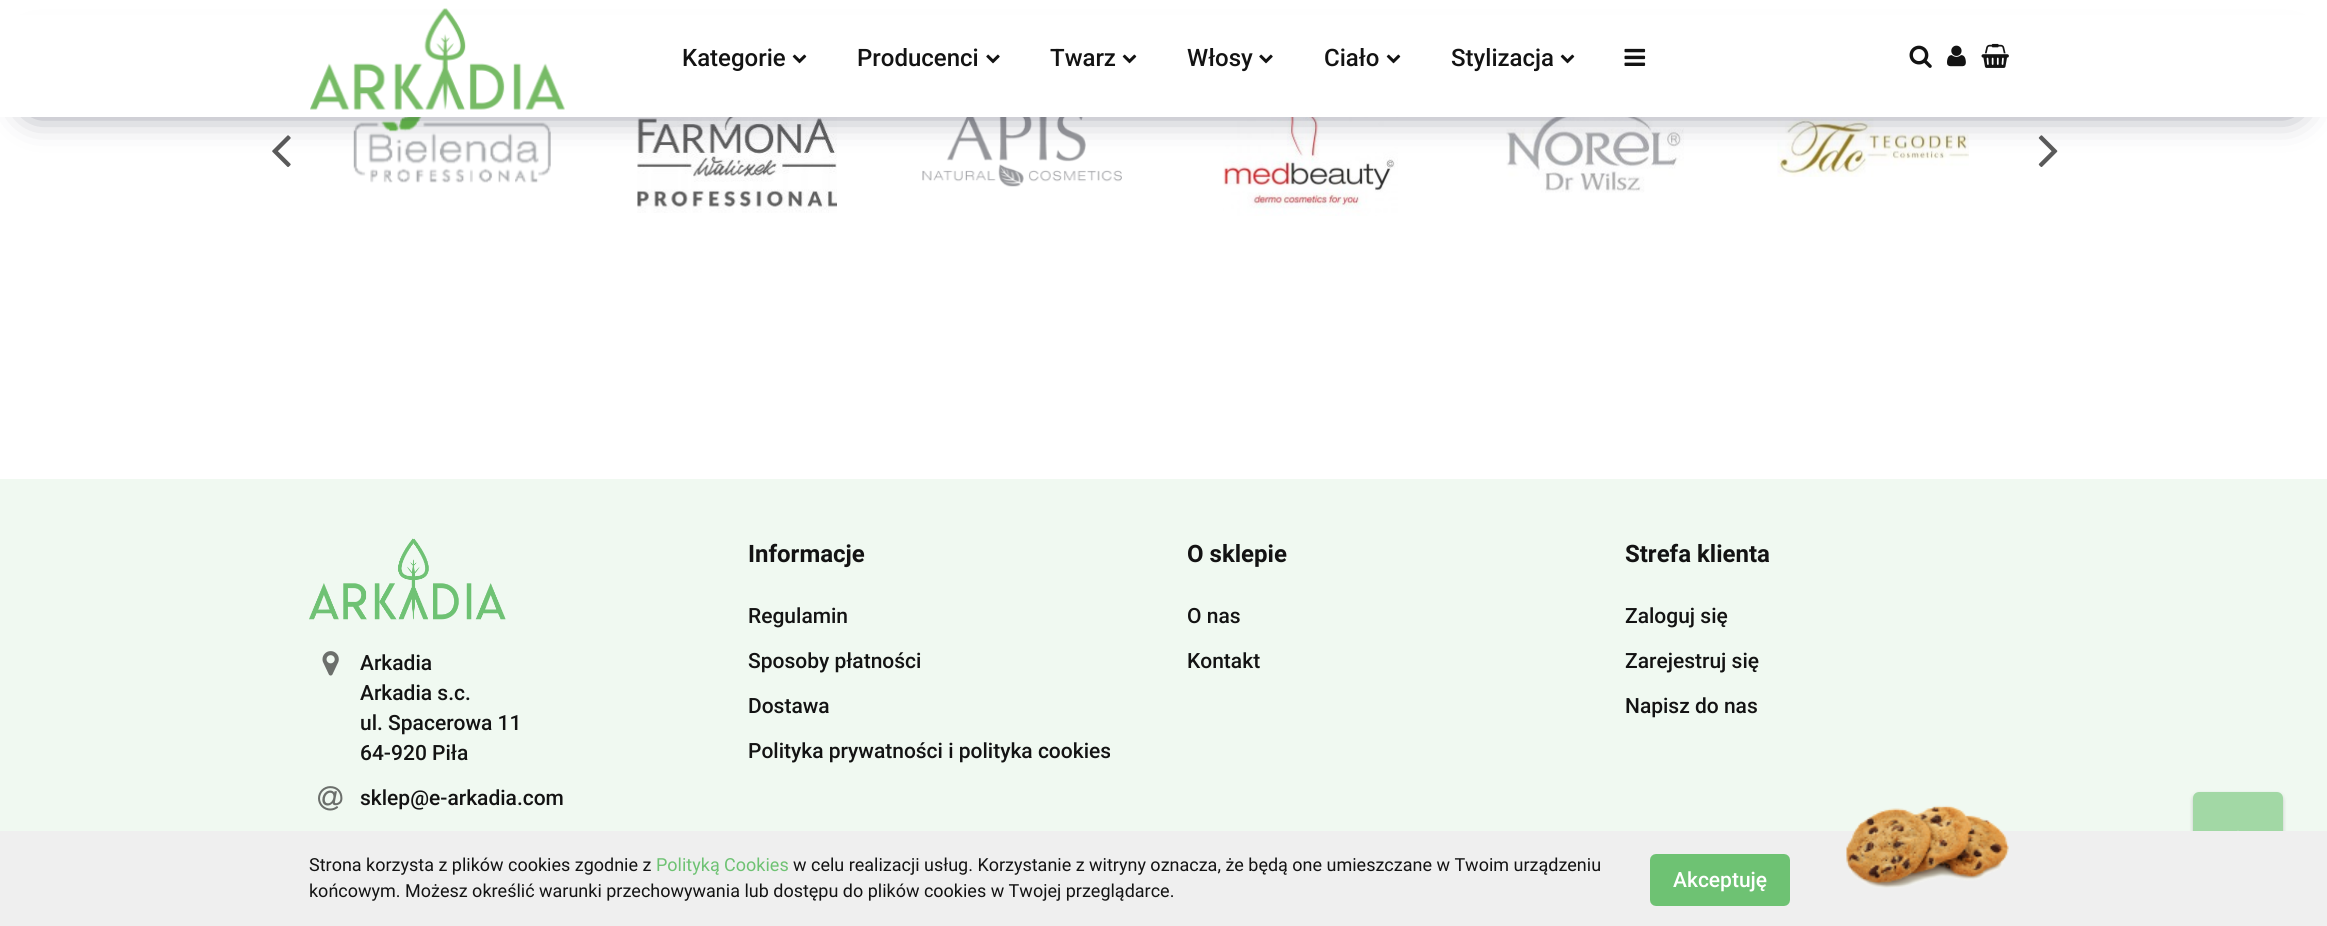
#include <cairo/cairo.h>
#include <math.h>
#include <stddef.h>

typedef struct { double x, y; const char *s; } line_t;
static cairo_t *cr;

static void rgb(unsigned color)
{
	cairo_set_source_rgb(cr, (color >> 16) / 255.0, (color >> 8 & 255) / 255.0, (color & 255) / 255.0);
}

static void rrect(double x, double y, double w, double h, double r)
{
	cairo_new_sub_path(cr);
	cairo_arc(cr, x + w - r, y + h - r, r, 0, M_PI / 2);
	cairo_arc(cr, x + r, y + h - r, r, M_PI / 2, M_PI);
	cairo_arc(cr, x + r, y + r, r, M_PI, 1.5 * M_PI);
	cairo_arc(cr, x + w - r, y + r, r, 1.5 * M_PI, 2 * M_PI);
	cairo_close_path(cr);
}

static void soft_shadow(double x, double y, double w, double h, double r, double blur, double alpha)
{
	cairo_push_group_with_content(cr, CAIRO_CONTENT_ALPHA);
	cairo_set_operator(cr, CAIRO_OPERATOR_SOURCE);
	for (int i = 15; i >= -15 && fmin(w, h) + blur * i / 3 > 0; i -= 2) {
		double e = blur * i / 6;
		cairo_set_source_rgba(cr, 0, 0, 0, alpha * erfc((i - 1) / 8.5) / 2);
		rrect(x - e, y - e, w + 2 * e, h + 2 * e, fmax(0, fmin(r + e + blur * .6, fmin(w, h) / 2 + e)));
		cairo_fill(cr);
	}
	cairo_pattern_t *soft = cairo_pop_group(cr);
	cairo_mask(cr, soft);
	cairo_pattern_destroy(soft);
}

static void image(const char *path, double x, double y, double w, double h)
{
	cairo_surface_t *image = cairo_image_surface_create_from_png(path);
	cairo_save(cr);
	cairo_set_source_surface(cr, image, x, y);
	cairo_rectangle(cr, x, y, w, h);
	cairo_fill(cr);
	cairo_restore(cr);
	cairo_surface_destroy(image);
}

int main(void) {
	cairo_surface_t *surface = cairo_image_surface_create(CAIRO_FORMAT_RGB24, 2327, 926);
	cr = cairo_create(surface);
	cairo_font_options_t *options = cairo_font_options_create();
	cairo_font_options_set_hint_metrics(options, CAIRO_HINT_METRICS_OFF);
	cairo_font_options_set_hint_style(options, CAIRO_HINT_STYLE_NONE);
	cairo_set_font_options(cr, options);
	cairo_set_miter_limit(cr, 4);
	rgb(0xffffff);
	cairo_paint(cr);
	image("img/8.png", 353, 117, 198, 66);
	image("img/9.png", 637, 117, 200, 96);
	image("img/10.png", 922, 117, 200, 70);
	image("img/11.png", 1223, 117, 175, 99);
	image("img/12.png", 1506, 117, 178, 76);
	image("img/13.png", 1777, 118, 192, 59);
	image("img/14.png", 272, 135, 19, 32);
	image("img/15.png", 2038, 135, 20, 32);
	rgb(0x42445a);
	soft_shadow(33, 57, 2259, 48, 0, 19, 1);
	rgb(0xffffff);
	cairo_rectangle(cr, 0, 15, 2327, 102);
	cairo_fill(cr);
	image("img/1.png", 310, 8, 255, 102);
	image("img/2.png", 792, 54, 15, 10);
	image("img/3.png", 986, 54, 14, 10);
	image("img/2.png", 1122, 54, 15, 10);
	image("img/3.png", 1259, 54, 14, 10);
	image("img/2.png", 1386, 54, 15, 10);
	image("img/2.png", 1560, 54, 15, 10);
	image("img/4.png", 1624, 48, 22, 18);
	image("img/5.png", 1909, 45, 23, 23);
	image("img/6.png", 1947, 45, 19, 22);
	image("img/7.png", 1981, 43, 28, 25);
	rgb(0xf0f9f1);
	cairo_rectangle(cr, 0, 479, 2327, 352);
	cairo_fill(cr);
	image("img/16.png", 309, 538, 197, 82);
	image("img/17.png", 322, 651, 17, 25);
	image("img/18.png", 318, 786, 25, 25);
	cairo_save(cr);
	cairo_set_fill_rule(cr, CAIRO_FILL_RULE_EVEN_ODD);
	cairo_new_path(cr);
	cairo_move_to(cr, 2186, 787);
	cairo_line_to(cr, 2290, 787);
	cairo_line_to(cr, 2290, 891);
	cairo_line_to(cr, 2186, 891);
	cairo_close_path(cr);
	cairo_move_to(cr, 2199, 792);
	cairo_line_to(cr, 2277, 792);
	cairo_curve_to(cr, 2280.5, 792, 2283, 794.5, 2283, 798);
	cairo_line_to(cr, 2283, 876);
	cairo_curve_to(cr, 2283, 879.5, 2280.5, 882, 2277, 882);
	cairo_line_to(cr, 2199, 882);
	cairo_curve_to(cr, 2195.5, 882, 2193, 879.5, 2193, 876);
	cairo_line_to(cr, 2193, 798);
	cairo_curve_to(cr, 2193, 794.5, 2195.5, 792, 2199, 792);
	cairo_close_path(cr);
	cairo_clip(cr);
	rgb(0x000000);
	soft_shadow(2193, 794, 90, 90, 6, 2, 0.2);
	cairo_restore(cr);
	cairo_set_source_rgba(cr, 0.431, 0.761, 0.451, 0.6);
	rrect(2193, 792, 90, 90, 6);
	cairo_fill(cr);
	rgb(0xefefef);
	cairo_rectangle(cr, 0, 831, 2327, 95);
	cairo_fill(cr);
	rgb(0x6ec273);
	rrect(1652.5, 856.5, 135, 47, 3.5);
	cairo_fill_preserve(cr);
	cairo_set_line_width(cr, 5);
	cairo_stroke(cr);
	image("img/19.png", 1846, 805, 163, 83);
	image("img/20.png", 2237, 830, 2, 1);
	cairo_select_font_face(cr, "Roboto Medium", CAIRO_FONT_SLANT_NORMAL, CAIRO_FONT_WEIGHT_NORMAL);
	cairo_set_font_size(cr, 24);
	rgb(0x131313);
	{
		static const line_t items[] = {
			{682, 66, "Kategorie"},
			{857, 66, "Producenci"},
			{1050, 66, "Twarz"},
			{1187, 66, "Włosy"},
			{1324, 66, "Ciało"},
			{1451, 66, "Stylizacja"},
		};
		for (size_t i = 0; i < sizeof items / sizeof *items; i++) {
			cairo_move_to(cr, items[i].x, items[i].y);
			cairo_show_text(cr, items[i].s);
		}
	}
	cairo_select_font_face(cr, "Roboto", CAIRO_FONT_SLANT_NORMAL, CAIRO_FONT_WEIGHT_BOLD);
	cairo_move_to(cr, 748, 562);
	cairo_show_text(cr, "Informacje");
	cairo_select_font_face(cr, "Roboto Medium", CAIRO_FONT_SLANT_NORMAL, CAIRO_FONT_WEIGHT_NORMAL);
	cairo_set_font_size(cr, 21);
	{
		static const line_t items[] = {
			{748, 623, "Regulamin"},
			{748, 668, "Sposoby płatności"},
			{748, 713, "Dostawa"},
			{748, 758, "Polityka prywatności i polityka cookies"},
		};
		for (size_t i = 0; i < sizeof items / sizeof *items; i++) {
			cairo_move_to(cr, items[i].x, items[i].y);
			cairo_show_text(cr, items[i].s);
		}
	}
	cairo_select_font_face(cr, "Roboto", CAIRO_FONT_SLANT_NORMAL, CAIRO_FONT_WEIGHT_BOLD);
	cairo_set_font_size(cr, 24);
	cairo_move_to(cr, 1187, 562);
	cairo_show_text(cr, "O sklepie");
	cairo_select_font_face(cr, "Roboto Medium", CAIRO_FONT_SLANT_NORMAL, CAIRO_FONT_WEIGHT_NORMAL);
	cairo_set_font_size(cr, 21);
	cairo_move_to(cr, 1187, 623);
	cairo_show_text(cr, "O nas");
	cairo_move_to(cr, 1187, 668);
	cairo_show_text(cr, "Kontakt");
	cairo_select_font_face(cr, "Roboto", CAIRO_FONT_SLANT_NORMAL, CAIRO_FONT_WEIGHT_BOLD);
	cairo_set_font_size(cr, 24);
	cairo_move_to(cr, 1625, 562);
	cairo_show_text(cr, "Strefa klienta");
	cairo_select_font_face(cr, "Roboto Medium", CAIRO_FONT_SLANT_NORMAL, CAIRO_FONT_WEIGHT_NORMAL);
	cairo_set_font_size(cr, 21);
	{
		static const line_t items[] = {
			{1625, 623, "Zaloguj się"},
			{1625, 668, "Zarejestruj się"},
			{1625, 713, "Napisz do nas"},
			{360, 670, "Arkadia"},
			{360, 700, "Arkadia s.c."},
			{360, 730, "ul. Spacerowa 11"},
			{360, 760, "64-920 Piła"},
			{360, 805, "sklep@e-arkadia.com"},
		};
		for (size_t i = 0; i < sizeof items / sizeof *items; i++) {
			cairo_move_to(cr, items[i].x, items[i].y);
			cairo_show_text(cr, items[i].s);
		}
	}
	cairo_select_font_face(cr, "Roboto", CAIRO_FONT_SLANT_NORMAL, CAIRO_FONT_WEIGHT_NORMAL);
	cairo_set_font_size(cr, 18);
	cairo_move_to(cr, 309, 871);
	cairo_show_text(cr, "Strona korzysta z plików cookies zgodnie z");
	rgb(0x6ec273);
	cairo_move_to(cr, 656, 871);
	cairo_show_text(cr, "Polityką Cookies");
	rgb(0x131313);
	cairo_move_to(cr, 793, 871);
	cairo_show_text(cr, "w celu realizacji usług. Korzystanie z witryny oznacza, że będą one umieszczane w Twoim urządzeniu");
	cairo_move_to(cr, 309, 897);
	cairo_show_text(cr, "końcowym. Możesz określić warunki przechowywania lub dostępu do plików cookies w Twojej przeglądarce.");
	cairo_select_font_face(cr, "Roboto Medium", CAIRO_FONT_SLANT_NORMAL, CAIRO_FONT_WEIGHT_NORMAL);
	cairo_set_font_size(cr, 21);
	rgb(0xffffff);
	cairo_move_to(cr, 1673, 887);
	cairo_show_text(cr, "Akceptuję");
	cairo_surface_write_to_png(surface, "page.png");
	cairo_font_options_destroy(options);
	cairo_destroy(cr);
	cairo_surface_destroy(surface);
	return 0;
}
